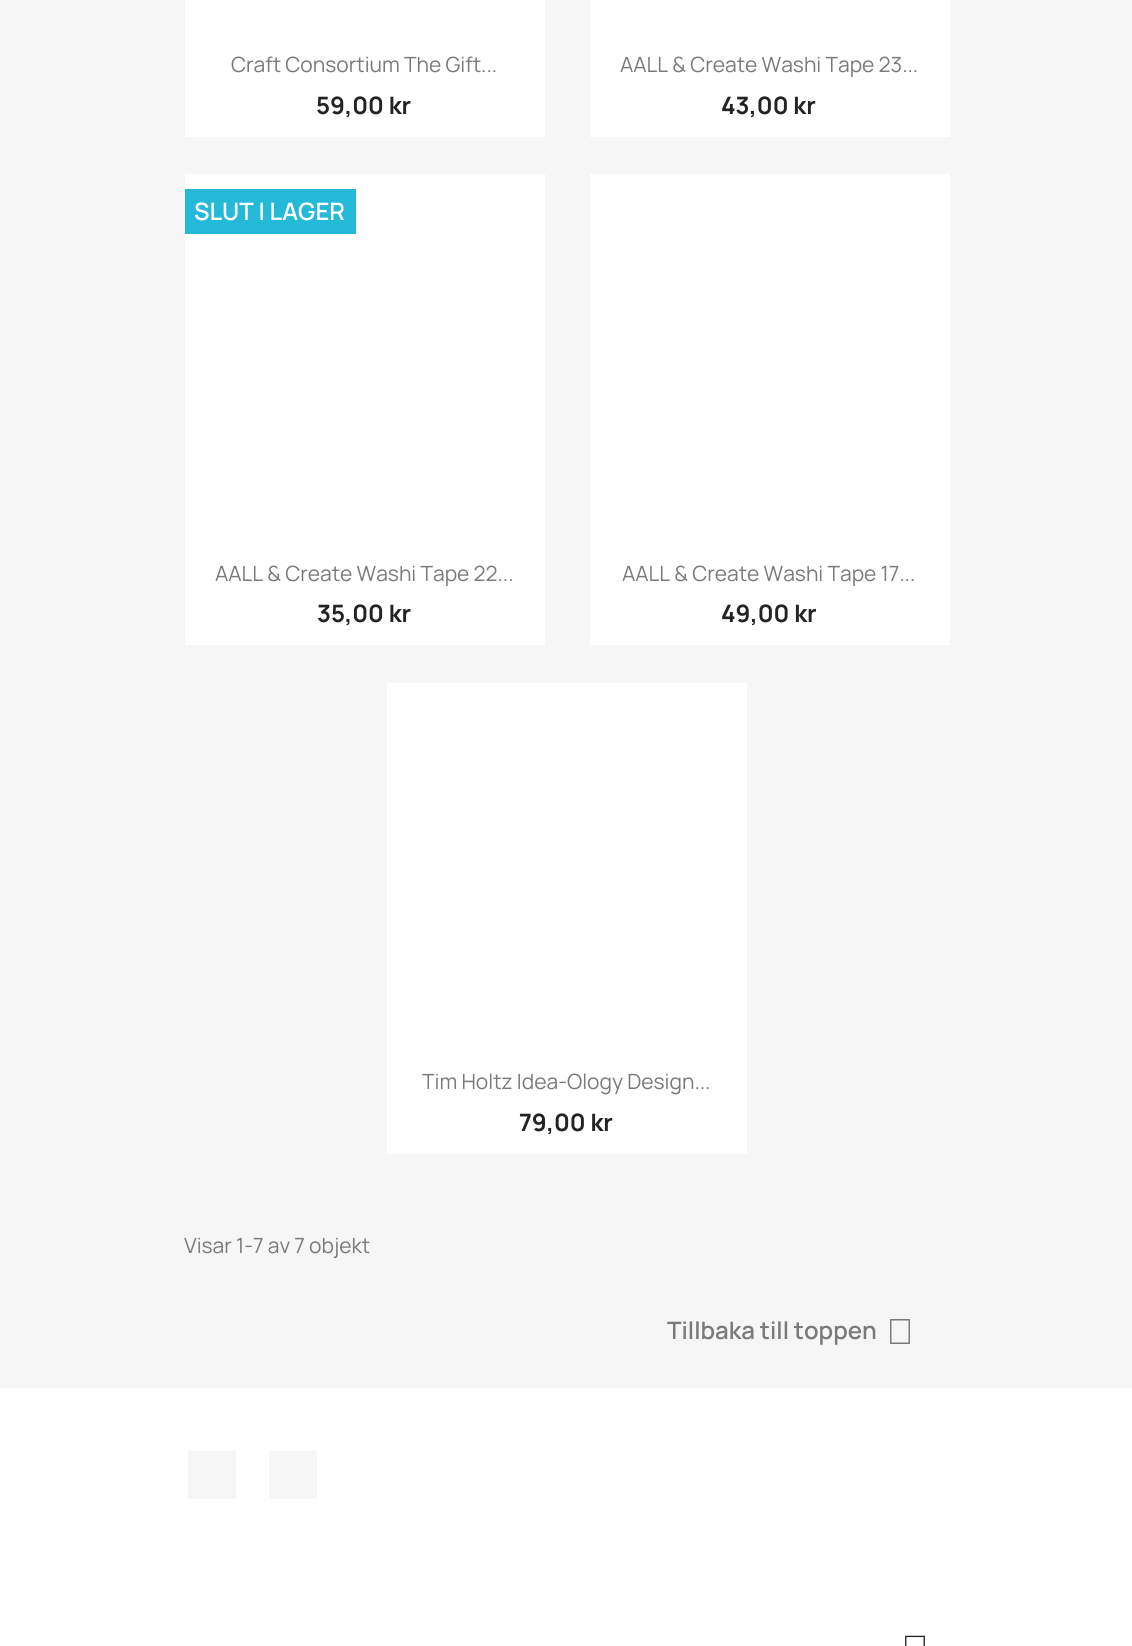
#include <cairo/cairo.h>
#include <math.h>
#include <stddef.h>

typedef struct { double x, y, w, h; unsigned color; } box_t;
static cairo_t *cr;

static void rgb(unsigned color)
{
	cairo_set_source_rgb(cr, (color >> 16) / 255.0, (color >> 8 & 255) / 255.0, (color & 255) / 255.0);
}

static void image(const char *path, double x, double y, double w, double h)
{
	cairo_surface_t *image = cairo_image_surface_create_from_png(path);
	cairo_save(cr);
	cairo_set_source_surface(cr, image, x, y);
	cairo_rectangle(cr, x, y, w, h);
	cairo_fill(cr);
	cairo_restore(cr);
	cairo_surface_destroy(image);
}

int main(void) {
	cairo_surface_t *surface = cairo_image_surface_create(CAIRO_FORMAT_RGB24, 1132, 1646);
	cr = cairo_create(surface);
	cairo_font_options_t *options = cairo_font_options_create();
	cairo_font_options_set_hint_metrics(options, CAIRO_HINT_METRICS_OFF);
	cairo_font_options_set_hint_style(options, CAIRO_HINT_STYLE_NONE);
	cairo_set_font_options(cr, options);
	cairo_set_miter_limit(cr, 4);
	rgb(0xffffff);
	cairo_paint(cr);
	{
		static const box_t items[] = {
			{0, 0, 1132, 1388, 0xf6f6f6},
			{185, 0, 360, 137, 0xffffff},
			{590, 0, 360, 137, 0xffffff},
			{185, 174, 360, 471, 0xffffff},
			{185, 189, 171, 45, 0x24b9d7},
			{590, 174, 360, 471, 0xffffff},
			{387, 683, 360, 471, 0xffffff},
		};
		for (size_t i = 0; i < sizeof items / sizeof *items; i++) {
			rgb(items[i].color);
			cairo_rectangle(cr, items[i].x, items[i].y, items[i].w, items[i].h);
			cairo_fill(cr);
		}
	}
	rgb(0x7a7a7a);
	cairo_new_path(cr);
	cairo_move_to(cr, 890, 1319);
	cairo_line_to(cr, 910, 1319);
	cairo_line_to(cr, 910, 1344);
	cairo_line_to(cr, 890, 1344);
	cairo_close_path(cr);
	cairo_move_to(cr, 891.5, 1320.5);
	cairo_line_to(cr, 891.5, 1342.5);
	cairo_line_to(cr, 908.5, 1342.5);
	cairo_line_to(cr, 908.5, 1320.5);
	cairo_close_path(cr);
	cairo_fill(cr);
	rgb(0xf6f6f6);
	cairo_rectangle(cr, 188, 1451, 48, 48);
	cairo_fill(cr);
	cairo_rectangle(cr, 269, 1451, 48, 48);
	cairo_fill(cr);
	image("img/1.png", 905, 1635, 20, 11);
	cairo_select_font_face(cr, "Manrope", CAIRO_FONT_SLANT_NORMAL, CAIRO_FONT_WEIGHT_NORMAL);
	cairo_set_font_size(cr, 21);
	rgb(0x7a7a7a);
	cairo_move_to(cr, 231, 72);
	cairo_show_text(cr, "Craft Consortium The Gift...");
	cairo_select_font_face(cr, "Manrope", CAIRO_FONT_SLANT_NORMAL, CAIRO_FONT_WEIGHT_BOLD);
	cairo_set_font_size(cr, 24);
	rgb(0x232323);
	cairo_move_to(cr, 316, 114);
	cairo_show_text(cr, "59,00 kr");
	cairo_select_font_face(cr, "Manrope", CAIRO_FONT_SLANT_NORMAL, CAIRO_FONT_WEIGHT_NORMAL);
	cairo_set_font_size(cr, 21);
	rgb(0x7a7a7a);
	cairo_move_to(cr, 620, 72);
	cairo_show_text(cr, "AALL & Create Washi Tape 23...");
	cairo_select_font_face(cr, "Manrope", CAIRO_FONT_SLANT_NORMAL, CAIRO_FONT_WEIGHT_BOLD);
	cairo_set_font_size(cr, 24);
	rgb(0x232323);
	cairo_move_to(cr, 721, 114);
	cairo_show_text(cr, "43,00 kr");
	cairo_select_font_face(cr, "Manrope SemiBold", CAIRO_FONT_SLANT_NORMAL, CAIRO_FONT_WEIGHT_NORMAL);
	rgb(0xffffff);
	cairo_move_to(cr, 194, 220);
	cairo_show_text(cr, "SLUT I LAGER");
	cairo_select_font_face(cr, "Manrope", CAIRO_FONT_SLANT_NORMAL, CAIRO_FONT_WEIGHT_NORMAL);
	cairo_set_font_size(cr, 21);
	rgb(0x7a7a7a);
	cairo_move_to(cr, 215, 581);
	cairo_show_text(cr, "AALL & Create Washi Tape 22...");
	cairo_select_font_face(cr, "Manrope", CAIRO_FONT_SLANT_NORMAL, CAIRO_FONT_WEIGHT_BOLD);
	cairo_set_font_size(cr, 24);
	rgb(0x232323);
	cairo_move_to(cr, 317, 622);
	cairo_show_text(cr, "35,00 kr");
	cairo_select_font_face(cr, "Manrope", CAIRO_FONT_SLANT_NORMAL, CAIRO_FONT_WEIGHT_NORMAL);
	cairo_set_font_size(cr, 21);
	rgb(0x7a7a7a);
	cairo_move_to(cr, 622, 581);
	cairo_show_text(cr, "AALL & Create Washi Tape 17...");
	cairo_select_font_face(cr, "Manrope", CAIRO_FONT_SLANT_NORMAL, CAIRO_FONT_WEIGHT_BOLD);
	cairo_set_font_size(cr, 24);
	rgb(0x232323);
	cairo_move_to(cr, 721, 622);
	cairo_show_text(cr, "49,00 kr");
	cairo_select_font_face(cr, "Manrope", CAIRO_FONT_SLANT_NORMAL, CAIRO_FONT_WEIGHT_NORMAL);
	cairo_set_font_size(cr, 21);
	rgb(0x7a7a7a);
	cairo_move_to(cr, 422, 1089);
	cairo_show_text(cr, "Tim Holtz Idea-Ology Design...");
	cairo_select_font_face(cr, "Manrope", CAIRO_FONT_SLANT_NORMAL, CAIRO_FONT_WEIGHT_BOLD);
	cairo_set_font_size(cr, 24);
	rgb(0x232323);
	cairo_move_to(cr, 519, 1131);
	cairo_show_text(cr, "79,00 kr");
	cairo_select_font_face(cr, "Manrope", CAIRO_FONT_SLANT_NORMAL, CAIRO_FONT_WEIGHT_NORMAL);
	cairo_set_font_size(cr, 21);
	rgb(0x7a7a7a);
	cairo_move_to(cr, 184, 1253);
	cairo_show_text(cr, "Visar 1-7 av 7 objekt");
	cairo_select_font_face(cr, "Manrope SemiBold", CAIRO_FONT_SLANT_NORMAL, CAIRO_FONT_WEIGHT_NORMAL);
	cairo_set_font_size(cr, 24);
	cairo_move_to(cr, 667, 1339);
	cairo_show_text(cr, "Tillbaka till toppen");
	cairo_surface_write_to_png(surface, "page.png");
	cairo_font_options_destroy(options);
	cairo_destroy(cr);
	cairo_surface_destroy(surface);
	return 0;
}
